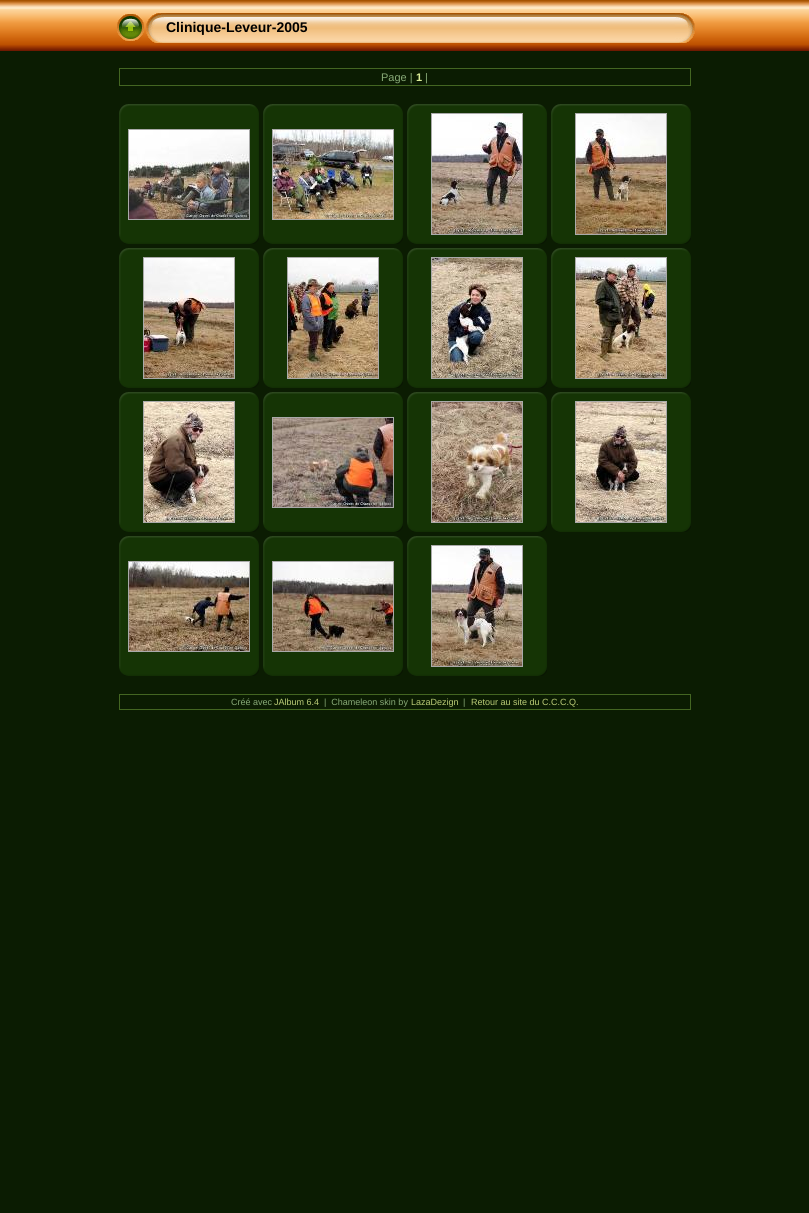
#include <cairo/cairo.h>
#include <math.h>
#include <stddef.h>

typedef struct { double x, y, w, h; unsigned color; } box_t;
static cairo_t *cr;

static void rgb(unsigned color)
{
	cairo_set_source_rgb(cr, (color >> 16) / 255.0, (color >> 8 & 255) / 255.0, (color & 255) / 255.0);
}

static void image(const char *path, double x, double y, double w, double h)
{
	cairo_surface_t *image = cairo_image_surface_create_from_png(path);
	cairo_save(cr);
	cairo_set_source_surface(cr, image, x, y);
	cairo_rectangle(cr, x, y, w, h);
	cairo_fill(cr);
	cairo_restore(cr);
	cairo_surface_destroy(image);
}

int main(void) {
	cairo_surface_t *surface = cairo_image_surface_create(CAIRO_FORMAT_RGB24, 809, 1213);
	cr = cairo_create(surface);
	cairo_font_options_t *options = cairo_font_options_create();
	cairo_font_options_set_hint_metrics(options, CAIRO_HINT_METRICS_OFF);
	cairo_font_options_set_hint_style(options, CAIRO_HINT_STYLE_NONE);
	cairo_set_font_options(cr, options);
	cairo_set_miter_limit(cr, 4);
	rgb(0x0b1c02);
	cairo_paint(cr);
	image("img/1.png", 0, 0, 809, 51);
	image("img/2.png", 117, 14, 27, 27);
	image("img/3.png", 146, 13, 20, 30);
	image("img/4.png", 166, 13, 509, 30);
	image("img/5.png", 675, 13, 20, 30);
	{
		static const box_t items[] = {
			{119, 68, 572, 1, 0x446622},
			{690, 68, 1, 18, 0x446622},
			{119, 85, 572, 1, 0x446622},
			{119, 68, 1, 18, 0x446622},
		};
		for (size_t i = 0; i < sizeof items / sizeof *items; i++) {
			rgb(items[i].color);
			cairo_rectangle(cr, items[i].x, items[i].y, items[i].w, items[i].h);
			cairo_fill(cr);
		}
	}
	image("img/6.png", 119, 104, 140, 140);
	cairo_rectangle(cr, 128.5, 129.5, 121, 90);
	rgb(0xaaaaaa);
	cairo_set_line_width(cr, 1);
	cairo_stroke(cr);
	image("img/7.png", 129, 130, 120, 89);
	image("img/6.png", 263, 104, 140, 140);
	cairo_rectangle(cr, 272.5, 129.5, 121, 90);
	cairo_stroke(cr);
	image("img/8.png", 273, 130, 120, 89);
	image("img/6.png", 407, 104, 140, 140);
	cairo_rectangle(cr, 431.5, 113.5, 91, 121);
	cairo_stroke(cr);
	image("img/9.png", 432, 114, 90, 120);
	image("img/6.png", 551, 104, 140, 140);
	cairo_rectangle(cr, 575.5, 113.5, 91, 121);
	cairo_stroke(cr);
	image("img/10.png", 576, 114, 90, 120);
	image("img/6.png", 119, 248, 140, 140);
	cairo_rectangle(cr, 143.5, 257.5, 91, 121);
	cairo_stroke(cr);
	image("img/11.png", 144, 258, 90, 120);
	image("img/6.png", 263, 248, 140, 140);
	cairo_rectangle(cr, 287.5, 257.5, 91, 121);
	cairo_stroke(cr);
	image("img/12.png", 288, 258, 90, 120);
	image("img/6.png", 407, 248, 140, 140);
	cairo_rectangle(cr, 431.5, 257.5, 91, 121);
	cairo_stroke(cr);
	image("img/13.png", 432, 258, 90, 120);
	image("img/6.png", 551, 248, 140, 140);
	cairo_rectangle(cr, 575.5, 257.5, 91, 121);
	cairo_stroke(cr);
	image("img/14.png", 576, 258, 90, 120);
	image("img/6.png", 119, 392, 140, 140);
	cairo_rectangle(cr, 143.5, 401.5, 91, 121);
	cairo_stroke(cr);
	image("img/15.png", 144, 402, 90, 120);
	image("img/6.png", 263, 392, 140, 140);
	cairo_rectangle(cr, 272.5, 417.5, 121, 90);
	cairo_stroke(cr);
	image("img/16.png", 273, 418, 120, 89);
	image("img/6.png", 407, 392, 140, 140);
	cairo_rectangle(cr, 431.5, 401.5, 91, 121);
	cairo_stroke(cr);
	image("img/17.png", 432, 402, 90, 120);
	image("img/6.png", 551, 392, 140, 140);
	cairo_rectangle(cr, 575.5, 401.5, 91, 121);
	cairo_stroke(cr);
	image("img/18.png", 576, 402, 90, 120);
	image("img/6.png", 119, 536, 140, 140);
	cairo_rectangle(cr, 128.5, 561.5, 121, 90);
	cairo_stroke(cr);
	image("img/19.png", 129, 562, 120, 89);
	image("img/6.png", 263, 536, 140, 140);
	cairo_rectangle(cr, 272.5, 561.5, 121, 90);
	cairo_stroke(cr);
	image("img/20.png", 273, 562, 120, 89);
	image("img/6.png", 407, 536, 140, 140);
	cairo_rectangle(cr, 431.5, 545.5, 91, 121);
	cairo_stroke(cr);
	image("img/21.png", 432, 546, 90, 120);
	{
		static const box_t items[] = {
			{119, 694, 572, 1, 0x446622},
			{690, 694, 1, 16, 0x446622},
			{119, 709, 572, 1, 0x446622},
			{119, 694, 1, 16, 0x446622},
		};
		for (size_t i = 0; i < sizeof items / sizeof *items; i++) {
			rgb(items[i].color);
			cairo_rectangle(cr, items[i].x, items[i].y, items[i].w, items[i].h);
			cairo_fill(cr);
		}
	}
	cairo_select_font_face(cr, "Liberation Sans", CAIRO_FONT_SLANT_NORMAL, CAIRO_FONT_WEIGHT_BOLD);
	cairo_set_font_size(cr, 14);
	rgb(0x000000);
	cairo_move_to(cr, 166, 32);
	cairo_show_text(cr, "Clinique-Leveur-2005");
	cairo_select_font_face(cr, "Liberation Sans", CAIRO_FONT_SLANT_NORMAL, CAIRO_FONT_WEIGHT_NORMAL);
	cairo_set_font_size(cr, 11);
	rgb(0x88aa77);
	cairo_move_to(cr, 381, 81);
	cairo_show_text(cr, "Page |");
	cairo_select_font_face(cr, "Liberation Sans", CAIRO_FONT_SLANT_NORMAL, CAIRO_FONT_WEIGHT_BOLD);
	rgb(0xddee99);
	cairo_move_to(cr, 416, 81);
	cairo_show_text(cr, "1");
	cairo_select_font_face(cr, "Liberation Sans", CAIRO_FONT_SLANT_NORMAL, CAIRO_FONT_WEIGHT_NORMAL);
	rgb(0x88aa77);
	cairo_move_to(cr, 425, 81);
	cairo_show_text(cr, "|");
	cairo_set_font_size(cr, 9);
	cairo_move_to(cr, 231, 705);
	cairo_show_text(cr, "Créé avec");
	rgb(0xbbcc77);
	cairo_move_to(cr, 274, 705);
	cairo_show_text(cr, "JAlbum 6.4");
	rgb(0x88aa77);
	cairo_move_to(cr, 324, 705);
	cairo_show_text(cr, "|  Chameleon skin by");
	rgb(0xbbcc77);
	cairo_move_to(cr, 411, 705);
	cairo_show_text(cr, "LazaDezign");
	rgb(0x88aa77);
	cairo_move_to(cr, 463, 705);
	cairo_show_text(cr, "|");
	rgb(0xbbcc77);
	cairo_move_to(cr, 471, 705);
	cairo_show_text(cr, "Retour au site du C.C.C.Q.");
	cairo_surface_write_to_png(surface, "page.png");
	cairo_font_options_destroy(options);
	cairo_destroy(cr);
	cairo_surface_destroy(surface);
	return 0;
}
